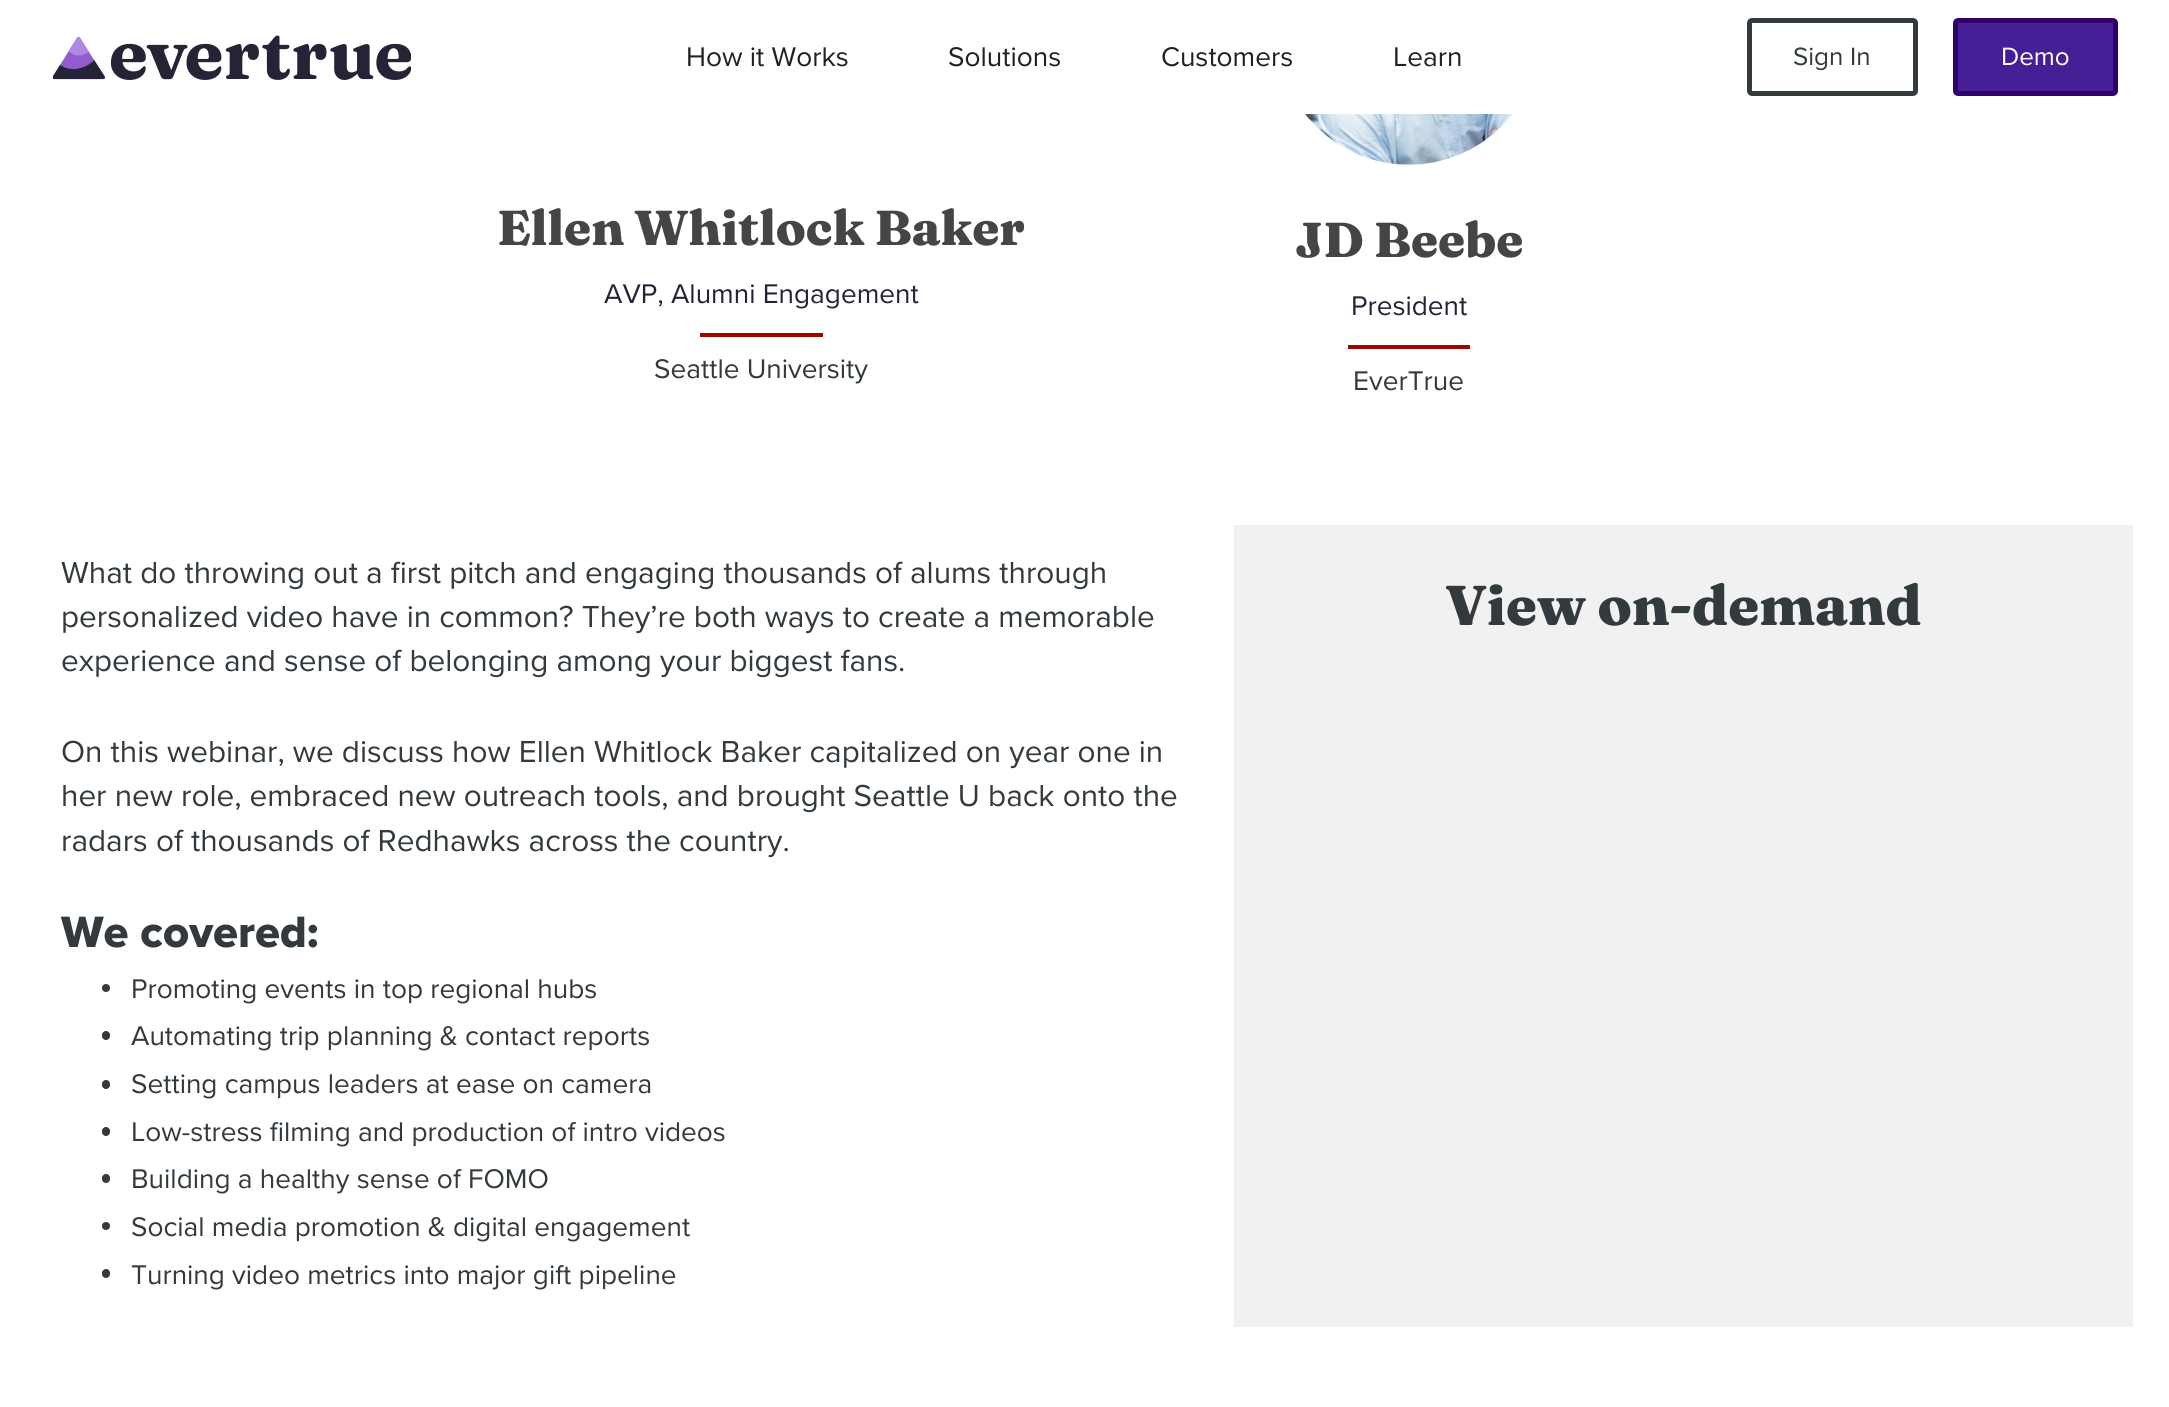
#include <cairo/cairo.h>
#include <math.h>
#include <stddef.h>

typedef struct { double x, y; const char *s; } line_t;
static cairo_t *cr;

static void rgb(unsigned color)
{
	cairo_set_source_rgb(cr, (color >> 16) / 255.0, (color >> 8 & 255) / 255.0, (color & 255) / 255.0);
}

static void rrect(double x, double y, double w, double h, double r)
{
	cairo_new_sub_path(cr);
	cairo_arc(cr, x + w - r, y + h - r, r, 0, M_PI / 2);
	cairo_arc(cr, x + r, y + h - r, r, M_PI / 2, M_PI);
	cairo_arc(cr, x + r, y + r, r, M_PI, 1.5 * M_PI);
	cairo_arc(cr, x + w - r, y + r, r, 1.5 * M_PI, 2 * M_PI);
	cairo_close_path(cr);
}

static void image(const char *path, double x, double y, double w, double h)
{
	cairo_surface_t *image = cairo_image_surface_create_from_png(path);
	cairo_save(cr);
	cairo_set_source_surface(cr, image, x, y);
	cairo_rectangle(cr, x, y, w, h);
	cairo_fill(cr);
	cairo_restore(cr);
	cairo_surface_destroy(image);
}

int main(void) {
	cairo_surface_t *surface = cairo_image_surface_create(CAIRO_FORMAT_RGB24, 2169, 1407);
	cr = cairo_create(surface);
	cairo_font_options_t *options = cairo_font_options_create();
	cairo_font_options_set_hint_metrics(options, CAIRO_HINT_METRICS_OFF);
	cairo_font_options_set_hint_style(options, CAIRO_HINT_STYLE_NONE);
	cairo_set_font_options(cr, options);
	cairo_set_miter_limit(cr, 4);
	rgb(0xffffff);
	cairo_paint(cr);
	image("img/1.png", 53, 35, 358, 45);
	rrect(1749.5, 20.5, 166, 73, 2.5);
	rgb(0x323a3e);
	cairo_set_line_width(cr, 5);
	cairo_stroke(cr);
	rgb(0x451f95);
	rrect(1955.5, 20.5, 160, 73, 2.5);
	cairo_fill_preserve(cr);
	rgb(0x30006c);
	cairo_stroke(cr);
	rgb(0x9f0600);
	cairo_rectangle(cr, 700, 333, 123, 4);
	cairo_fill(cr);
	image("img/2.png", 1305, 114, 208, 51);
	cairo_rectangle(cr, 1348, 345, 122, 4);
	cairo_fill(cr);
	rgb(0x323a3e);
	cairo_arc(cr, 106, 988, 4, 0, 2 * M_PI);
	cairo_fill(cr);
	rrect(102, 1031, 8, 9, 4);
	cairo_fill(cr);
	rrect(102, 1080, 8, 9, 4);
	cairo_fill(cr);
	rrect(102, 1127, 8, 9, 4);
	cairo_fill(cr);
	rrect(102, 1174, 8, 9, 4);
	cairo_fill(cr);
	cairo_arc(cr, 106, 1226, 4, 0, 2 * M_PI);
	cairo_fill(cr);
	rrect(102, 1269, 8, 9, 4);
	cairo_fill(cr);
	rgb(0xf1f1f1);
	cairo_rectangle(cr, 1234, 525, 899, 802);
	cairo_fill(cr);
	cairo_select_font_face(cr, "Proxima Nova", CAIRO_FONT_SLANT_NORMAL, CAIRO_FONT_WEIGHT_NORMAL);
	cairo_set_font_size(cr, 28);
	rgb(0x1f2124);
	{
		static const line_t items[] = {
			{686, 66, "How it Works"},
			{948, 66, "Solutions"},
			{1161, 66, "Customers"},
			{1393, 66, "Learn"},
		};
		for (size_t i = 0; i < sizeof items / sizeof *items; i++) {
			cairo_move_to(cr, items[i].x, items[i].y);
			cairo_show_text(cr, items[i].s);
		}
	}
	cairo_set_font_size(cr, 26);
	rgb(0x323a3e);
	cairo_move_to(cr, 1793, 65);
	cairo_show_text(cr, "Sign In");
	rgb(0xffffff);
	cairo_move_to(cr, 2001, 65);
	cairo_show_text(cr, "Demo");
	cairo_select_font_face(cr, "Fraunces ExtraBold", CAIRO_FONT_SLANT_NORMAL, CAIRO_FONT_WEIGHT_NORMAL);
	cairo_set_font_size(cr, 49);
	rgb(0x454545);
	cairo_move_to(cr, 497, 245);
	cairo_show_text(cr, "Ellen Whitlock Baker");
	cairo_select_font_face(cr, "Proxima Nova", CAIRO_FONT_SLANT_NORMAL, CAIRO_FONT_WEIGHT_NORMAL);
	cairo_set_font_size(cr, 28);
	rgb(0x242436);
	cairo_move_to(cr, 604, 303);
	cairo_show_text(cr, "AVP, Alumni Engagement");
	rgb(0x323a3e);
	cairo_move_to(cr, 654, 378);
	cairo_show_text(cr, "Seattle University");
	cairo_select_font_face(cr, "Fraunces ExtraBold", CAIRO_FONT_SLANT_NORMAL, CAIRO_FONT_WEIGHT_NORMAL);
	cairo_set_font_size(cr, 49);
	rgb(0x454545);
	cairo_move_to(cr, 1295, 257);
	cairo_show_text(cr, "JD Beebe");
	cairo_select_font_face(cr, "Proxima Nova", CAIRO_FONT_SLANT_NORMAL, CAIRO_FONT_WEIGHT_NORMAL);
	cairo_set_font_size(cr, 28);
	rgb(0x242436);
	cairo_move_to(cr, 1351, 315);
	cairo_show_text(cr, "President");
	rgb(0x323a3e);
	cairo_move_to(cr, 1353, 390);
	cairo_show_text(cr, "EverTrue");
	cairo_set_font_size(cr, 31.5);
	{
		static const line_t items[] = {
			{61, 583, "What do throwing out a first pitch and engaging thousands of alums through"},
			{61, 627, "personalized video have in common? They’re both ways to create a memorable"},
			{61, 671, "experience and sense of belonging among your biggest fans."},
			{61, 762, "On this webinar, we discuss how Ellen Whitlock Baker capitalized on year one in"},
			{61, 806, "her new role, embraced new outreach tools, and brought Seattle U back onto the"},
			{61, 851, "radars of thousands of Redhawks across the country."},
		};
		for (size_t i = 0; i < sizeof items / sizeof *items; i++) {
			cairo_move_to(cr, items[i].x, items[i].y);
			cairo_show_text(cr, items[i].s);
		}
	}
	cairo_select_font_face(cr, "Proxima Nova ExtraBold", CAIRO_FONT_SLANT_NORMAL, CAIRO_FONT_WEIGHT_NORMAL);
	cairo_set_font_size(cr, 45.5);
	cairo_move_to(cr, 61, 947);
	cairo_show_text(cr, "We covered:");
	cairo_select_font_face(cr, "Proxima Nova", CAIRO_FONT_SLANT_NORMAL, CAIRO_FONT_WEIGHT_NORMAL);
	cairo_set_font_size(cr, 28);
	{
		static const line_t items[] = {
			{131, 998, "Promoting events in top regional hubs"},
			{131, 1045, "Automating trip planning & contact reports"},
			{131, 1093, "Setting campus leaders at ease on camera"},
			{131, 1141, "Low-stress filming and production of intro videos"},
			{131, 1188, "Building a healthy sense of FOMO"},
			{131, 1236, "Social media promotion & digital engagement"},
			{131, 1284, "Turning video metrics into major gift pipeline"},
		};
		for (size_t i = 0; i < sizeof items / sizeof *items; i++) {
			cairo_move_to(cr, items[i].x, items[i].y);
			cairo_show_text(cr, items[i].s);
		}
	}
	cairo_select_font_face(cr, "Fraunces ExtraBold", CAIRO_FONT_SLANT_NORMAL, CAIRO_FONT_WEIGHT_NORMAL);
	cairo_set_font_size(cr, 56);
	cairo_move_to(cr, 1445, 625);
	cairo_show_text(cr, "View on-demand");
	cairo_surface_write_to_png(surface, "page.png");
	cairo_font_options_destroy(options);
	cairo_destroy(cr);
	cairo_surface_destroy(surface);
	return 0;
}
